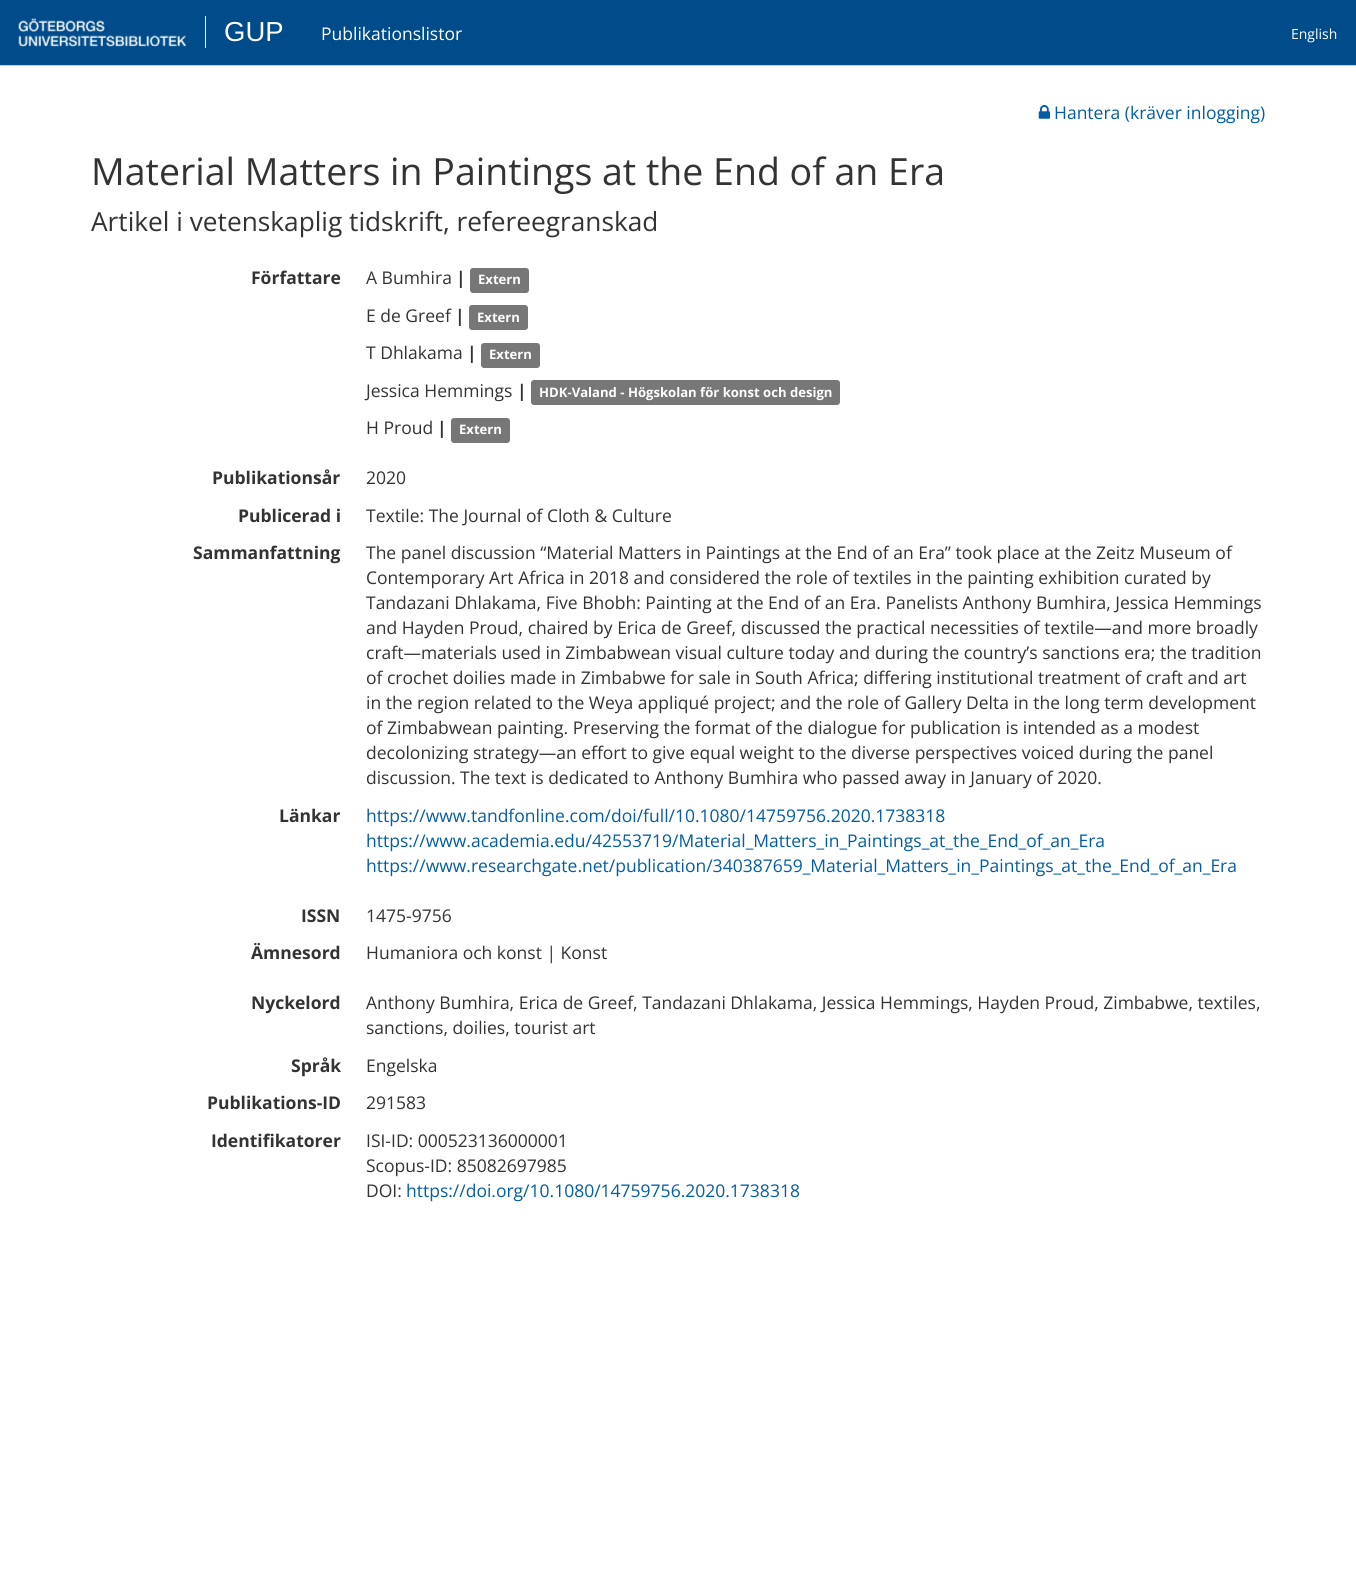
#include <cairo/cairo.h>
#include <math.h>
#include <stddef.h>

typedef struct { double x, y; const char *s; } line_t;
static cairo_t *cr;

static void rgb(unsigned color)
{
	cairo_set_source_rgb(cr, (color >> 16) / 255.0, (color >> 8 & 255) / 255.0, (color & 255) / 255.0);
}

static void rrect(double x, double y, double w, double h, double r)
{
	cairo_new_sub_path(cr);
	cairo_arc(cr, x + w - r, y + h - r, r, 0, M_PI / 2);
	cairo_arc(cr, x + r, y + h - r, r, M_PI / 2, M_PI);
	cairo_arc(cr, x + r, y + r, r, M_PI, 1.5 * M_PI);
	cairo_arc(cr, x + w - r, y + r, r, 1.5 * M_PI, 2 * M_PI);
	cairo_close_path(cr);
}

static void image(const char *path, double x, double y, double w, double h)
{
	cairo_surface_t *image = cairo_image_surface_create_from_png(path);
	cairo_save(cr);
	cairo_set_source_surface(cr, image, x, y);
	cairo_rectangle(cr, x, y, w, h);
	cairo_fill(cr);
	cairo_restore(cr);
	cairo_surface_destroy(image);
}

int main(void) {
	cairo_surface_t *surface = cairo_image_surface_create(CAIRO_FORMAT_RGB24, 1356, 1594);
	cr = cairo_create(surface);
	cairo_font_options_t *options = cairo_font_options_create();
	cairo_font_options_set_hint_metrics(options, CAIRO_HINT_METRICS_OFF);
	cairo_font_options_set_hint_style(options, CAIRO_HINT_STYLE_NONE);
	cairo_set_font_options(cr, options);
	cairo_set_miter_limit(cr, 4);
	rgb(0xffffff);
	cairo_paint(cr);
	rgb(0x004b89);
	cairo_rectangle(cr, 0, 0, 1356, 65);
	cairo_fill(cr);
	rgb(0xcccccc);
	cairo_rectangle(cr, 0, 65, 1356, 1);
	cairo_fill(cr);
	image("img/1.png", 18, 18, 168, 29);
	rgb(0xffffff);
	cairo_rectangle(cr, 205, 16, 1, 32);
	cairo_fill(cr);
	image("img/2.png", 1038, 105, 12, 14);
	rgb(0x777777);
	rrect(470, 268, 59, 25, 3);
	cairo_fill(cr);
	rrect(469, 305, 59, 25, 3);
	cairo_fill(cr);
	rrect(481, 343, 59, 25, 3);
	cairo_fill(cr);
	rrect(531, 380, 309, 25, 3);
	cairo_fill(cr);
	rrect(451, 418, 59, 25, 3);
	cairo_fill(cr);
	cairo_select_font_face(cr, "Liberation Sans", CAIRO_FONT_SLANT_NORMAL, CAIRO_FONT_WEIGHT_NORMAL);
	cairo_set_font_size(cr, 27.5);
	rgb(0xffffff);
	cairo_move_to(cr, 224, 41);
	cairo_show_text(cr, "GUP");
	cairo_select_font_face(cr, "Open Sans", CAIRO_FONT_SLANT_NORMAL, CAIRO_FONT_WEIGHT_NORMAL);
	cairo_set_font_size(cr, 17.5);
	cairo_move_to(cr, 321, 40);
	cairo_show_text(cr, "Publikationslistor");
	cairo_set_font_size(cr, 14);
	cairo_move_to(cr, 1291, 39);
	cairo_show_text(cr, "English");
	cairo_set_font_size(cr, 17.5);
	rgb(0x025da6);
	cairo_move_to(cr, 1054, 119);
	cairo_show_text(cr, "Hantera (kräver inlogging)");
	cairo_set_font_size(cr, 37.5);
	rgb(0x333333);
	cairo_move_to(cr, 91, 185);
	cairo_show_text(cr, "Material Matters in Paintings at the End of an Era");
	cairo_set_font_size(cr, 26.25);
	cairo_move_to(cr, 91, 231);
	cairo_show_text(cr, "Artikel i vetenskaplig tidskrift, refereegranskad");
	cairo_select_font_face(cr, "Open Sans", CAIRO_FONT_SLANT_NORMAL, CAIRO_FONT_WEIGHT_BOLD);
	cairo_set_font_size(cr, 17.5);
	cairo_move_to(cr, 251, 284);
	cairo_show_text(cr, "Författare");
	cairo_select_font_face(cr, "Open Sans", CAIRO_FONT_SLANT_NORMAL, CAIRO_FONT_WEIGHT_NORMAL);
	cairo_move_to(cr, 366, 284);
	cairo_show_text(cr, "A Bumhira");
	cairo_select_font_face(cr, "Open Sans", CAIRO_FONT_SLANT_NORMAL, CAIRO_FONT_WEIGHT_BOLD);
	cairo_move_to(cr, 456, 284);
	cairo_show_text(cr, "|");
	cairo_set_font_size(cr, 13.1);
	rgb(0xffffff);
	cairo_move_to(cr, 478, 284);
	cairo_show_text(cr, "Extern");
	cairo_select_font_face(cr, "Open Sans", CAIRO_FONT_SLANT_NORMAL, CAIRO_FONT_WEIGHT_NORMAL);
	cairo_set_font_size(cr, 17.5);
	rgb(0x333333);
	cairo_move_to(cr, 366, 322);
	cairo_show_text(cr, "E de Greef");
	cairo_select_font_face(cr, "Open Sans", CAIRO_FONT_SLANT_NORMAL, CAIRO_FONT_WEIGHT_BOLD);
	cairo_move_to(cr, 455, 322);
	cairo_show_text(cr, "|");
	cairo_set_font_size(cr, 13.1);
	rgb(0xffffff);
	cairo_move_to(cr, 477, 322);
	cairo_show_text(cr, "Extern");
	cairo_select_font_face(cr, "Open Sans", CAIRO_FONT_SLANT_NORMAL, CAIRO_FONT_WEIGHT_NORMAL);
	cairo_set_font_size(cr, 17.5);
	rgb(0x333333);
	cairo_move_to(cr, 366, 359);
	cairo_show_text(cr, "T Dhlakama");
	cairo_select_font_face(cr, "Open Sans", CAIRO_FONT_SLANT_NORMAL, CAIRO_FONT_WEIGHT_BOLD);
	cairo_move_to(cr, 467, 359);
	cairo_show_text(cr, "|");
	cairo_set_font_size(cr, 13.1);
	rgb(0xffffff);
	cairo_move_to(cr, 489, 359);
	cairo_show_text(cr, "Extern");
	cairo_select_font_face(cr, "Open Sans", CAIRO_FONT_SLANT_NORMAL, CAIRO_FONT_WEIGHT_NORMAL);
	cairo_set_font_size(cr, 17.5);
	rgb(0x333333);
	cairo_move_to(cr, 366, 397);
	cairo_show_text(cr, "Jessica Hemmings");
	cairo_select_font_face(cr, "Open Sans", CAIRO_FONT_SLANT_NORMAL, CAIRO_FONT_WEIGHT_BOLD);
	cairo_move_to(cr, 517, 397);
	cairo_show_text(cr, "|");
	cairo_set_font_size(cr, 13.1);
	rgb(0xffffff);
	cairo_move_to(cr, 539, 397);
	cairo_show_text(cr, "HDK-Valand - Högskolan för konst och design");
	cairo_select_font_face(cr, "Open Sans", CAIRO_FONT_SLANT_NORMAL, CAIRO_FONT_WEIGHT_NORMAL);
	cairo_set_font_size(cr, 17.5);
	rgb(0x333333);
	cairo_move_to(cr, 366, 434);
	cairo_show_text(cr, "H Proud");
	cairo_select_font_face(cr, "Open Sans", CAIRO_FONT_SLANT_NORMAL, CAIRO_FONT_WEIGHT_BOLD);
	cairo_move_to(cr, 437, 434);
	cairo_show_text(cr, "|");
	cairo_set_font_size(cr, 13.1);
	rgb(0xffffff);
	cairo_move_to(cr, 459, 434);
	cairo_show_text(cr, "Extern");
	cairo_set_font_size(cr, 17.5);
	rgb(0x333333);
	cairo_move_to(cr, 212, 484);
	cairo_show_text(cr, "Publikationsår");
	cairo_select_font_face(cr, "Open Sans", CAIRO_FONT_SLANT_NORMAL, CAIRO_FONT_WEIGHT_NORMAL);
	cairo_move_to(cr, 366, 484);
	cairo_show_text(cr, "2020");
	cairo_select_font_face(cr, "Open Sans", CAIRO_FONT_SLANT_NORMAL, CAIRO_FONT_WEIGHT_BOLD);
	cairo_move_to(cr, 238, 522);
	cairo_show_text(cr, "Publicerad i");
	cairo_select_font_face(cr, "Open Sans", CAIRO_FONT_SLANT_NORMAL, CAIRO_FONT_WEIGHT_NORMAL);
	cairo_move_to(cr, 366, 522);
	cairo_show_text(cr, "Textile: The Journal of Cloth & Culture");
	cairo_select_font_face(cr, "Open Sans", CAIRO_FONT_SLANT_NORMAL, CAIRO_FONT_WEIGHT_BOLD);
	cairo_move_to(cr, 193, 559);
	cairo_show_text(cr, "Sammanfattning");
	cairo_select_font_face(cr, "Open Sans", CAIRO_FONT_SLANT_NORMAL, CAIRO_FONT_WEIGHT_NORMAL);
	{
		static const line_t items[] = {
			{366, 559, "The panel discussion “Material Matters in Paintings at the End of an Era” took place at the Zeitz Museum of"},
			{366, 584, "Contemporary Art Africa in 2018 and considered the role of textiles in the painting exhibition curated by"},
			{366, 609, "Tandazani Dhlakama, Five Bhobh: Painting at the End of an Era. Panelists Anthony Bumhira, Jessica Hemmings"},
			{366, 634, "and Hayden Proud, chaired by Erica de Greef, discussed the practical necessities of textile—and more broadly"},
			{366, 659, "craft—materials used in Zimbabwean visual culture today and during the country’s sanctions era; the tradition"},
			{366, 684, "of crochet doilies made in Zimbabwe for sale in South Africa; differing institutional treatment of craft and art"},
			{366, 709, "in the region related to the Weya appliqué project; and the role of Gallery Delta in the long term development"},
			{366, 734, "of Zimbabwean painting. Preserving the format of the dialogue for publication is intended as a modest"},
			{366, 759, "decolonizing strategy—an effort to give equal weight to the diverse perspectives voiced during the panel"},
			{366, 784, "discussion. The text is dedicated to Anthony Bumhira who passed away in January of 2020."},
		};
		for (size_t i = 0; i < sizeof items / sizeof *items; i++) {
			cairo_move_to(cr, items[i].x, items[i].y);
			cairo_show_text(cr, items[i].s);
		}
	}
	cairo_select_font_face(cr, "Open Sans", CAIRO_FONT_SLANT_NORMAL, CAIRO_FONT_WEIGHT_BOLD);
	cairo_move_to(cr, 279, 822);
	cairo_show_text(cr, "Länkar");
	cairo_select_font_face(cr, "Open Sans", CAIRO_FONT_SLANT_NORMAL, CAIRO_FONT_WEIGHT_NORMAL);
	rgb(0x025da6);
	{
		static const line_t items[] = {
			{366, 822, "https://www.tandfonline.com/doi/full/10.1080/14759756.2020.1738318"},
			{366, 847, "https://www.academia.edu/42553719/Material_Matters_in_Paintings_at_the_End_of_an_Era"},
			{366, 872, "https://www.researchgate.net/publication/340387659_Material_Matters_in_Paintings_at_the_End_of_an_Era"},
		};
		for (size_t i = 0; i < sizeof items / sizeof *items; i++) {
			cairo_move_to(cr, items[i].x, items[i].y);
			cairo_show_text(cr, items[i].s);
		}
	}
	cairo_select_font_face(cr, "Open Sans", CAIRO_FONT_SLANT_NORMAL, CAIRO_FONT_WEIGHT_BOLD);
	rgb(0x333333);
	cairo_move_to(cr, 301, 922);
	cairo_show_text(cr, "ISSN");
	cairo_select_font_face(cr, "Open Sans", CAIRO_FONT_SLANT_NORMAL, CAIRO_FONT_WEIGHT_NORMAL);
	cairo_move_to(cr, 366, 922);
	cairo_show_text(cr, "1475-9756");
	cairo_select_font_face(cr, "Open Sans", CAIRO_FONT_SLANT_NORMAL, CAIRO_FONT_WEIGHT_BOLD);
	cairo_move_to(cr, 251, 959);
	cairo_show_text(cr, "Ämnesord");
	cairo_select_font_face(cr, "Open Sans", CAIRO_FONT_SLANT_NORMAL, CAIRO_FONT_WEIGHT_NORMAL);
	cairo_move_to(cr, 366, 959);
	cairo_show_text(cr, "Humaniora och konst | Konst");
	cairo_select_font_face(cr, "Open Sans", CAIRO_FONT_SLANT_NORMAL, CAIRO_FONT_WEIGHT_BOLD);
	cairo_move_to(cr, 251, 1009);
	cairo_show_text(cr, "Nyckelord");
	cairo_select_font_face(cr, "Open Sans", CAIRO_FONT_SLANT_NORMAL, CAIRO_FONT_WEIGHT_NORMAL);
	cairo_move_to(cr, 366, 1009);
	cairo_show_text(cr, "Anthony Bumhira, Erica de Greef, Tandazani Dhlakama, Jessica Hemmings, Hayden Proud, Zimbabwe, textiles,");
	cairo_move_to(cr, 366, 1034);
	cairo_show_text(cr, "sanctions, doilies, tourist art");
	cairo_select_font_face(cr, "Open Sans", CAIRO_FONT_SLANT_NORMAL, CAIRO_FONT_WEIGHT_BOLD);
	cairo_move_to(cr, 291, 1072);
	cairo_show_text(cr, "Språk");
	cairo_select_font_face(cr, "Open Sans", CAIRO_FONT_SLANT_NORMAL, CAIRO_FONT_WEIGHT_NORMAL);
	cairo_move_to(cr, 366, 1072);
	cairo_show_text(cr, "Engelska");
	cairo_select_font_face(cr, "Open Sans", CAIRO_FONT_SLANT_NORMAL, CAIRO_FONT_WEIGHT_BOLD);
	cairo_move_to(cr, 207, 1109);
	cairo_show_text(cr, "Publikations-ID");
	cairo_select_font_face(cr, "Open Sans", CAIRO_FONT_SLANT_NORMAL, CAIRO_FONT_WEIGHT_NORMAL);
	cairo_move_to(cr, 366, 1109);
	cairo_show_text(cr, "291583");
	cairo_select_font_face(cr, "Open Sans", CAIRO_FONT_SLANT_NORMAL, CAIRO_FONT_WEIGHT_BOLD);
	cairo_move_to(cr, 211, 1147);
	cairo_show_text(cr, "Identifikatorer");
	cairo_select_font_face(cr, "Open Sans", CAIRO_FONT_SLANT_NORMAL, CAIRO_FONT_WEIGHT_NORMAL);
	{
		static const line_t items[] = {
			{366, 1147, "ISI-ID: 000523136000001"},
			{366, 1172, "Scopus-ID: 85082697985"},
			{366, 1197, "DOI:"},
		};
		for (size_t i = 0; i < sizeof items / sizeof *items; i++) {
			cairo_move_to(cr, items[i].x, items[i].y);
			cairo_show_text(cr, items[i].s);
		}
	}
	rgb(0x025da6);
	cairo_move_to(cr, 406, 1197);
	cairo_show_text(cr, "https://doi.org/10.1080/14759756.2020.1738318");
	cairo_surface_write_to_png(surface, "page.png");
	cairo_font_options_destroy(options);
	cairo_destroy(cr);
	cairo_surface_destroy(surface);
	return 0;
}
